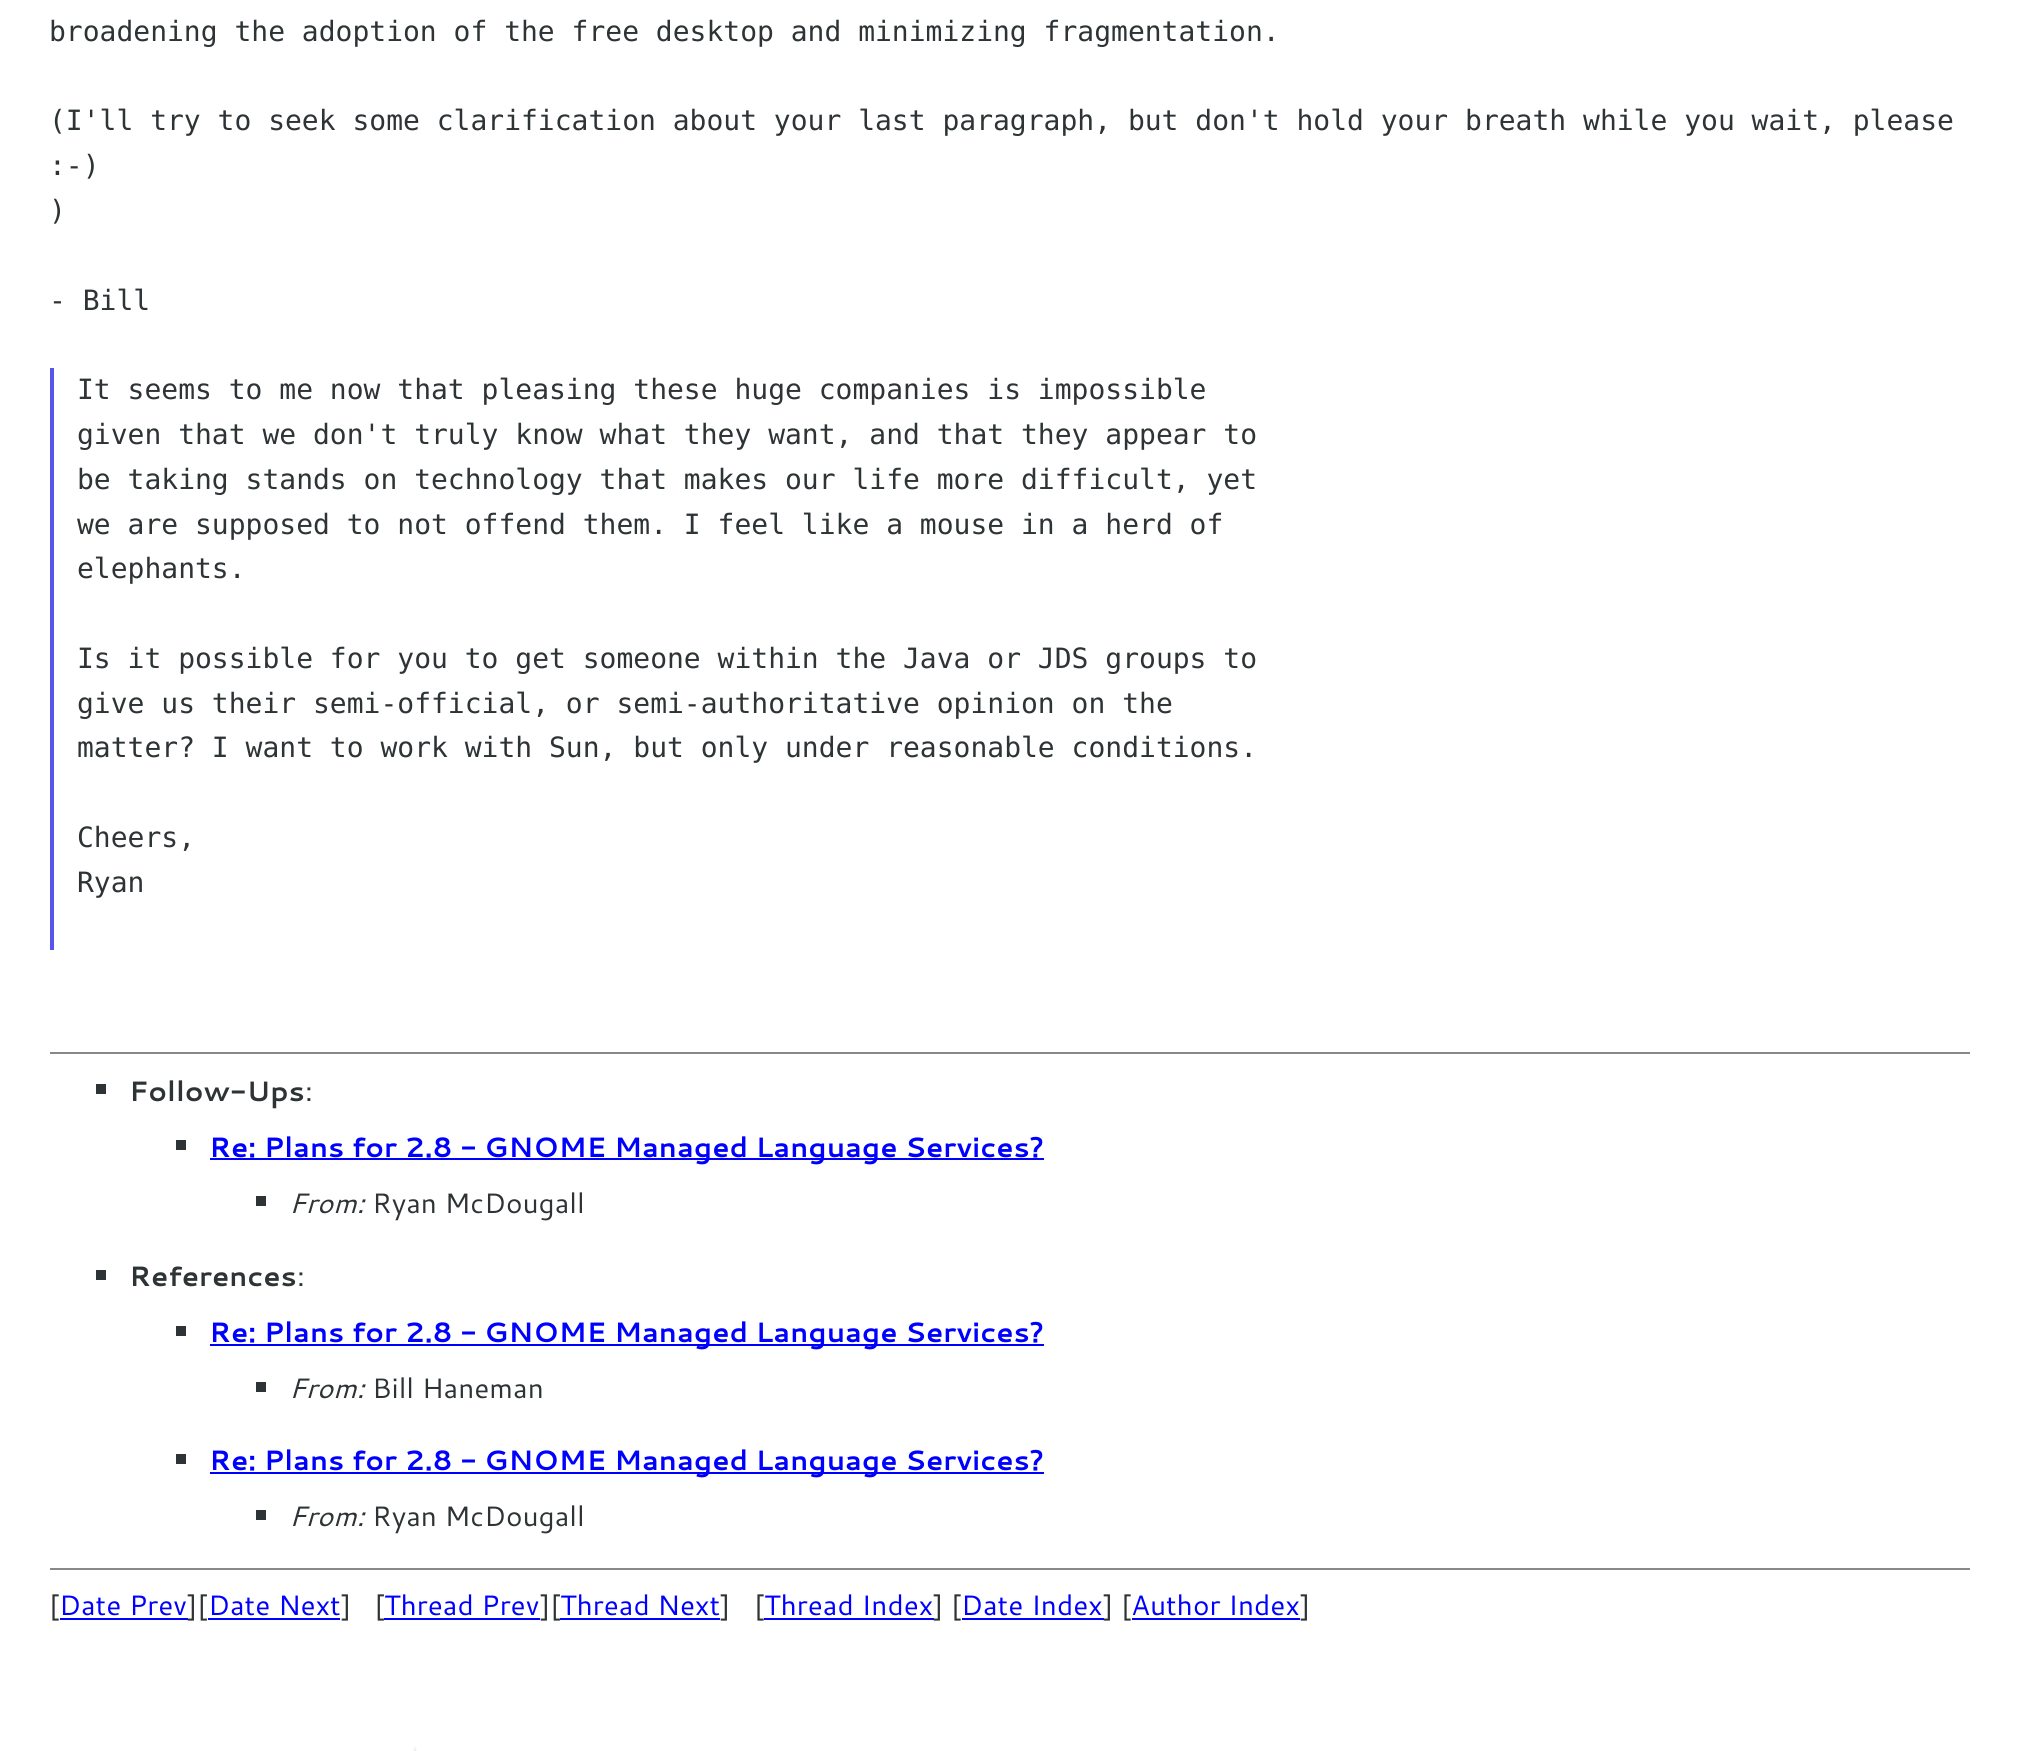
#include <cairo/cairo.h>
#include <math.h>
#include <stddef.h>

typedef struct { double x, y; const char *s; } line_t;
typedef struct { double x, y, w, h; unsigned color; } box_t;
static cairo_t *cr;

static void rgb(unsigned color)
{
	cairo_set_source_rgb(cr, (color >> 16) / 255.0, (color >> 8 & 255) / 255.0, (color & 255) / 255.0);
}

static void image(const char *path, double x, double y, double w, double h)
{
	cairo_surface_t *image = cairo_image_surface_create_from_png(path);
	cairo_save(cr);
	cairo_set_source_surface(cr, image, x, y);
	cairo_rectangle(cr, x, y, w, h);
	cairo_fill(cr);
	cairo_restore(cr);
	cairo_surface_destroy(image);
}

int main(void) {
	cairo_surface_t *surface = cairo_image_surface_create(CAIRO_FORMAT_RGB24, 2018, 1751);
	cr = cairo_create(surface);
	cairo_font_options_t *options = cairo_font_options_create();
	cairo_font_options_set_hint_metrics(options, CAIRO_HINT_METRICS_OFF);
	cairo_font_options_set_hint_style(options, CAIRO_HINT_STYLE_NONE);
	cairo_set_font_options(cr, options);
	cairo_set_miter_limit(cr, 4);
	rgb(0xffffff);
	cairo_paint(cr);
	{
		static const box_t items[] = {
			{50, 368, 4, 582, 0x5555ee},
			{50, 1052, 1920, 2, 0x888888},
			{96, 1084, 10, 10, 0x2e3436},
			{176, 1140, 10, 10, 0x2e3436},
			{210, 1158, 834, 2, 0x0000ff},
			{256, 1196, 10, 10, 0x2e3436},
			{96, 1270, 10, 10, 0x2e3436},
			{176, 1326, 10, 10, 0x2e3436},
			{210, 1344, 834, 2, 0x0000ff},
			{256, 1382, 10, 10, 0x2e3436},
			{176, 1454, 10, 10, 0x2e3436},
			{210, 1472, 834, 2, 0x0000ff},
			{256, 1510, 10, 10, 0x2e3436},
			{50, 1568, 1920, 2, 0x888888},
			{60, 1618, 128, 2, 0x0000ff},
			{208, 1618, 132, 2, 0x0000ff},
			{384, 1618, 156, 2, 0x0000ff},
			{560, 1618, 160, 2, 0x0000ff},
			{764, 1618, 170, 2, 0x0000ff},
			{962, 1618, 142, 2, 0x0000ff},
			{1132, 1618, 168, 2, 0x0000ff},
		};
		for (size_t i = 0; i < sizeof items / sizeof *items; i++) {
			rgb(items[i].color);
			cairo_rectangle(cr, items[i].x, items[i].y, items[i].w, items[i].h);
			cairo_fill(cr);
		}
	}
	image("img/1.png", 413, 1746, 4, 5);
	cairo_select_font_face(cr, "DejaVu Sans Mono", CAIRO_FONT_SLANT_NORMAL, CAIRO_FONT_WEIGHT_NORMAL);
	cairo_set_font_size(cr, 28);
	rgb(0x2e3436);
	{
		static const line_t items[] = {
			{49, 41, "broadening the adoption of the free desktop and minimizing fragmentation."},
			{49, 130, "(I'll try to seek some clarification about your last paragraph, but don't hold your breath while you wait, please"},
			{49, 175, ":-)"},
			{49, 220, ")"},
			{49, 310, "- Bill"},
			{77, 399, "It seems to me now that pleasing these huge companies is impossible"},
			{77, 444, "given that we don't truly know what they want, and that they appear to"},
			{77, 489, "be taking stands on technology that makes our life more difficult, yet"},
			{77, 534, "we are supposed to not offend them. I feel like a mouse in a herd of"},
			{77, 578, "elephants."},
			{77, 668, "Is it possible for you to get someone within the Java or JDS groups to"},
			{77, 713, "give us their semi-official, or semi-authoritative opinion on the"},
			{77, 757, "matter? I want to work with Sun, but only under reasonable conditions."},
			{77, 847, "Cheers,"},
			{77, 892, "Ryan"},
		};
		for (size_t i = 0; i < sizeof items / sizeof *items; i++) {
			cairo_move_to(cr, items[i].x, items[i].y);
			cairo_show_text(cr, items[i].s);
		}
	}
	cairo_select_font_face(cr, "Cantarell", CAIRO_FONT_SLANT_NORMAL, CAIRO_FONT_WEIGHT_BOLD);
	cairo_move_to(cr, 129, 1101);
	cairo_show_text(cr, "Follow-Ups");
	cairo_select_font_face(cr, "Cantarell", CAIRO_FONT_SLANT_NORMAL, CAIRO_FONT_WEIGHT_NORMAL);
	cairo_move_to(cr, 305, 1101);
	cairo_show_text(cr, ":");
	cairo_select_font_face(cr, "Cantarell", CAIRO_FONT_SLANT_NORMAL, CAIRO_FONT_WEIGHT_BOLD);
	rgb(0x0000ff);
	cairo_move_to(cr, 209, 1157);
	cairo_show_text(cr, "Re: Plans for 2.8 - GNOME Managed Language Services?");
	cairo_select_font_face(cr, "Cantarell", CAIRO_FONT_SLANT_ITALIC, CAIRO_FONT_WEIGHT_NORMAL);
	rgb(0x2e3436);
	cairo_move_to(cr, 289, 1213);
	cairo_show_text(cr, "From:");
	cairo_select_font_face(cr, "Cantarell", CAIRO_FONT_SLANT_NORMAL, CAIRO_FONT_WEIGHT_NORMAL);
	cairo_move_to(cr, 372, 1213);
	cairo_show_text(cr, "Ryan McDougall");
	cairo_select_font_face(cr, "Cantarell", CAIRO_FONT_SLANT_NORMAL, CAIRO_FONT_WEIGHT_BOLD);
	cairo_move_to(cr, 129, 1286);
	cairo_show_text(cr, "References");
	cairo_select_font_face(cr, "Cantarell", CAIRO_FONT_SLANT_NORMAL, CAIRO_FONT_WEIGHT_NORMAL);
	cairo_move_to(cr, 297, 1286);
	cairo_show_text(cr, ":");
	cairo_select_font_face(cr, "Cantarell", CAIRO_FONT_SLANT_NORMAL, CAIRO_FONT_WEIGHT_BOLD);
	rgb(0x0000ff);
	cairo_move_to(cr, 209, 1342);
	cairo_show_text(cr, "Re: Plans for 2.8 - GNOME Managed Language Services?");
	cairo_select_font_face(cr, "Cantarell", CAIRO_FONT_SLANT_ITALIC, CAIRO_FONT_WEIGHT_NORMAL);
	rgb(0x2e3436);
	cairo_move_to(cr, 289, 1398);
	cairo_show_text(cr, "From:");
	cairo_select_font_face(cr, "Cantarell", CAIRO_FONT_SLANT_NORMAL, CAIRO_FONT_WEIGHT_NORMAL);
	cairo_move_to(cr, 372, 1398);
	cairo_show_text(cr, "Bill Haneman");
	cairo_select_font_face(cr, "Cantarell", CAIRO_FONT_SLANT_NORMAL, CAIRO_FONT_WEIGHT_BOLD);
	rgb(0x0000ff);
	cairo_move_to(cr, 209, 1470);
	cairo_show_text(cr, "Re: Plans for 2.8 - GNOME Managed Language Services?");
	cairo_select_font_face(cr, "Cantarell", CAIRO_FONT_SLANT_ITALIC, CAIRO_FONT_WEIGHT_NORMAL);
	rgb(0x2e3436);
	cairo_move_to(cr, 289, 1526);
	cairo_show_text(cr, "From:");
	cairo_select_font_face(cr, "Cantarell", CAIRO_FONT_SLANT_NORMAL, CAIRO_FONT_WEIGHT_NORMAL);
	cairo_move_to(cr, 372, 1526);
	cairo_show_text(cr, "Ryan McDougall");
	cairo_move_to(cr, 49, 1615);
	cairo_show_text(cr, "[");
	rgb(0x0000ff);
	cairo_move_to(cr, 59, 1615);
	cairo_show_text(cr, "Date Prev");
	rgb(0x2e3436);
	cairo_move_to(cr, 187, 1615);
	cairo_show_text(cr, "][");
	rgb(0x0000ff);
	cairo_move_to(cr, 208, 1615);
	cairo_show_text(cr, "Date Next");
	rgb(0x2e3436);
	cairo_move_to(cr, 341, 1615);
	cairo_show_text(cr, "]   [");
	rgb(0x0000ff);
	cairo_move_to(cr, 384, 1615);
	cairo_show_text(cr, "Thread Prev");
	rgb(0x2e3436);
	cairo_move_to(cr, 540, 1615);
	cairo_show_text(cr, "][");
	rgb(0x0000ff);
	cairo_move_to(cr, 560, 1615);
	cairo_show_text(cr, "Thread Next");
	rgb(0x2e3436);
	cairo_move_to(cr, 720, 1615);
	cairo_show_text(cr, "]");
	cairo_move_to(cr, 754, 1615);
	cairo_show_text(cr, "[");
	rgb(0x0000ff);
	cairo_move_to(cr, 764, 1615);
	cairo_show_text(cr, "Thread Index");
	rgb(0x2e3436);
	cairo_move_to(cr, 933, 1615);
	cairo_show_text(cr, "] [");
	rgb(0x0000ff);
	cairo_move_to(cr, 961, 1615);
	cairo_show_text(cr, "Date Index");
	rgb(0x2e3436);
	cairo_move_to(cr, 1103, 1615);
	cairo_show_text(cr, "] [");
	rgb(0x0000ff);
	cairo_move_to(cr, 1131, 1615);
	cairo_show_text(cr, "Author Index");
	rgb(0x2e3436);
	cairo_move_to(cr, 1300, 1615);
	cairo_show_text(cr, "]");
	cairo_surface_write_to_png(surface, "page.png");
	cairo_font_options_destroy(options);
	cairo_destroy(cr);
	cairo_surface_destroy(surface);
	return 0;
}
